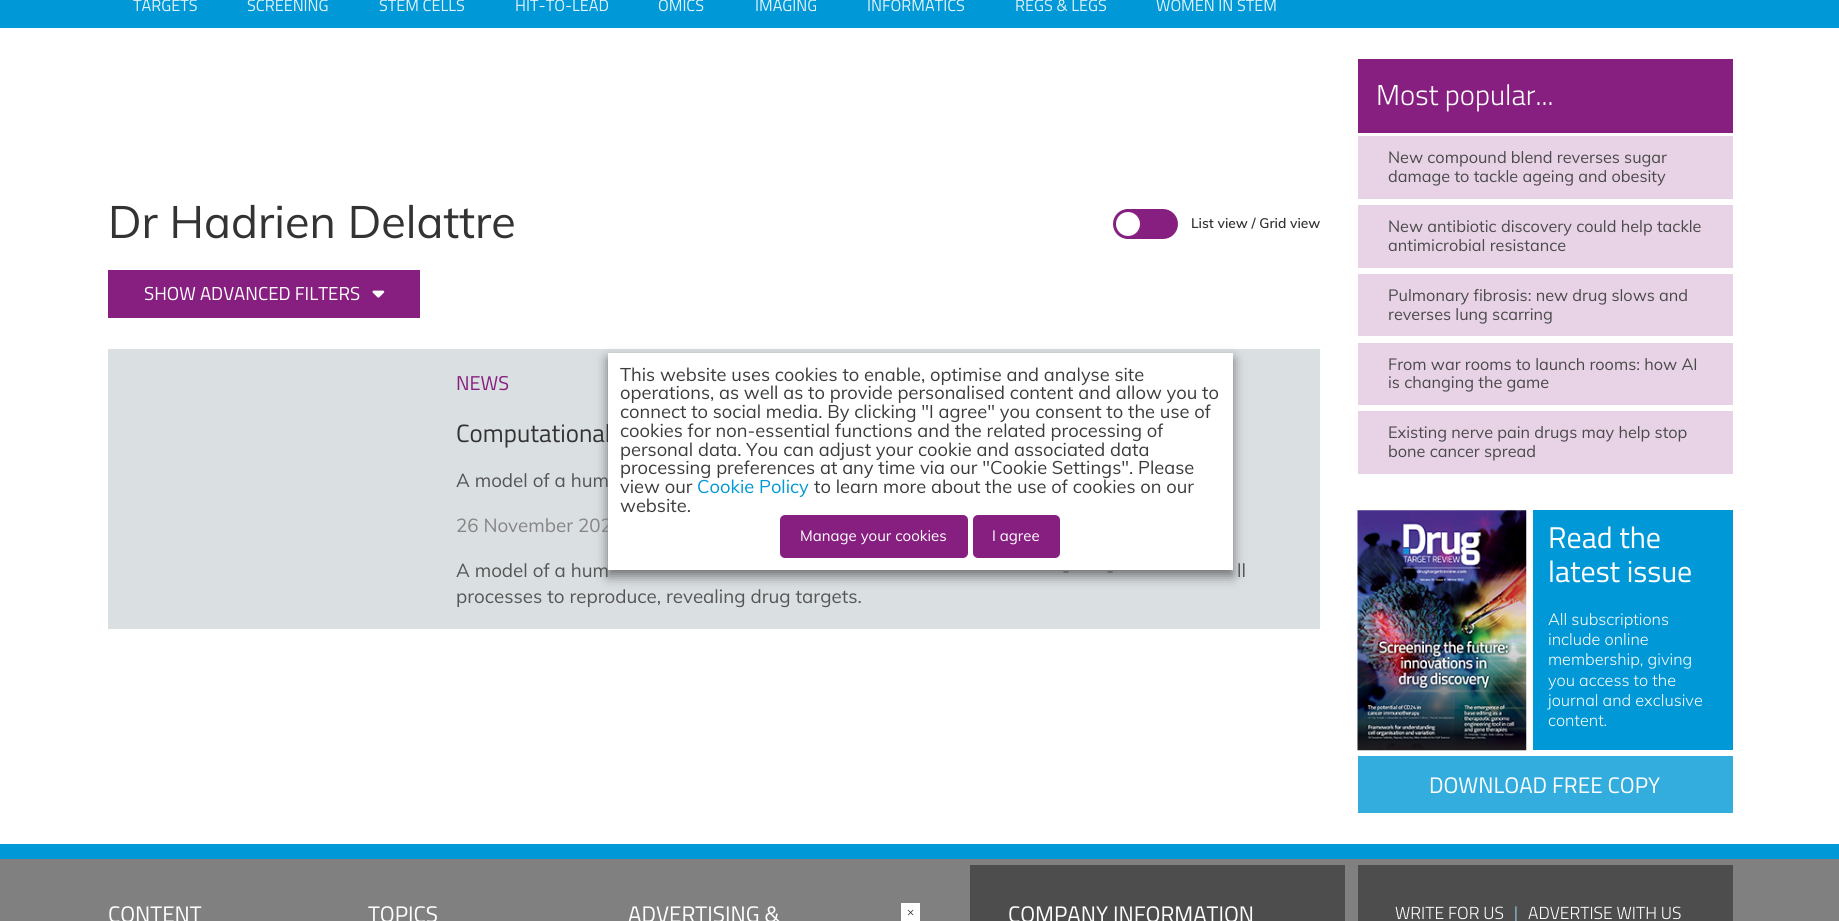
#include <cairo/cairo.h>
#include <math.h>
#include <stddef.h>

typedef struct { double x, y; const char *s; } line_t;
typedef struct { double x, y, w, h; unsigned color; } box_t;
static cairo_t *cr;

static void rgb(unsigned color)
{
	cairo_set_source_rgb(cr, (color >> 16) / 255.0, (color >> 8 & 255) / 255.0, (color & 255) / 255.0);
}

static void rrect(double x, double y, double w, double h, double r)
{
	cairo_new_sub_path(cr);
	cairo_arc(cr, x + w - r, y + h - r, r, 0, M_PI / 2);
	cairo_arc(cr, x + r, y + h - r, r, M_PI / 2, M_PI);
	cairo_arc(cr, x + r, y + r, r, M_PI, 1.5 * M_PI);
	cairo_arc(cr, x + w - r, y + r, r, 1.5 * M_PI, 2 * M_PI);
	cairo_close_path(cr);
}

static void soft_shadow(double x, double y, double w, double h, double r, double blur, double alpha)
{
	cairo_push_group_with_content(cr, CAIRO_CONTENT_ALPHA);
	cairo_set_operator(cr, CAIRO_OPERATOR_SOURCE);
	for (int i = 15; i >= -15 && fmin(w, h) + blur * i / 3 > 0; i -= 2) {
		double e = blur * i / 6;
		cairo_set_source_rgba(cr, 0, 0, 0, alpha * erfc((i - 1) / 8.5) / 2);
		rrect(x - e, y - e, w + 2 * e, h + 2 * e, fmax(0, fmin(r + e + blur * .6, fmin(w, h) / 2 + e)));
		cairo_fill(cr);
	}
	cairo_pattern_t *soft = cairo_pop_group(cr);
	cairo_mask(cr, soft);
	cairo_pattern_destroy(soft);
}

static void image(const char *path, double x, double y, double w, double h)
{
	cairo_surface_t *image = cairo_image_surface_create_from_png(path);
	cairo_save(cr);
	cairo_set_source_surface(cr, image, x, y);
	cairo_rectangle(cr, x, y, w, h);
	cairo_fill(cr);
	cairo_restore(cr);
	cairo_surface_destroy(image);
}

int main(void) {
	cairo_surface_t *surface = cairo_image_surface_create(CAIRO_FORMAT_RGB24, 1839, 921);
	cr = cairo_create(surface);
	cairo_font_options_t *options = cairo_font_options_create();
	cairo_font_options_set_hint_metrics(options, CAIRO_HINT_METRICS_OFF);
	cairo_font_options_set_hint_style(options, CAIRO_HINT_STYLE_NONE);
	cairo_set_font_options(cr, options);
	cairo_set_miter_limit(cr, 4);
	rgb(0xffffff);
	cairo_paint(cr);
	rgb(0x0098d6);
	cairo_rectangle(cr, 0, 0, 1839, 28);
	cairo_fill(cr);
	rgb(0x871f80);
	rrect(1116.5, 210.5, 60, 27, 13.5);
	cairo_fill_preserve(cr);
	cairo_set_line_width(cr, 3);
	cairo_stroke(cr);
	rgb(0xffffff);
	cairo_arc(cr, 1128, 224, 13.5, 0, 2 * M_PI);
	cairo_fill_preserve(cr);
	rgb(0x871f80);
	cairo_stroke(cr);
	cairo_rectangle(cr, 108, 270, 312, 48);
	cairo_fill(cr);
	image("img/1.png", 372, 290, 13, 8);
	{
		static const box_t items[] = {
			{108, 349, 1212, 280, 0xdadfe2},
			{1358, 59, 375, 74, 0x871f80},
			{1358, 136, 375, 63, 0xe7d2e6},
			{1358, 205, 375, 63, 0xe7d2e6},
			{1358, 274, 375, 62, 0xe7d2e6},
			{1358, 343, 375, 62, 0xe7d2e6},
			{1358, 411, 375, 63, 0xe7d2e6},
		};
		for (size_t i = 0; i < sizeof items / sizeof *items; i++) {
			rgb(items[i].color);
			cairo_rectangle(cr, items[i].x, items[i].y, items[i].w, items[i].h);
			cairo_fill(cr);
		}
	}
	image("img/2.png", 1357, 510, 170, 241);
	rgb(0x0098d6);
	cairo_rectangle(cr, 1533, 510, 200, 240);
	cairo_fill(cr);
	rgb(0x33adde);
	cairo_rectangle(cr, 1358, 756, 375, 57);
	cairo_fill(cr);
	rgb(0x000000);
	soft_shadow(608, 359, 625, 217, 0, 6, 0.5);
	{
		static const box_t items[] = {
			{0, 859, 1839, 62, 0x808080},
			{0, 844, 1839, 15, 0x0098d6},
			{970, 865, 375, 56, 0x4d4d4d},
			{1358, 865, 375, 56, 0x4d4d4d},
			{901, 903, 19, 18, 0xffffff},
		};
		for (size_t i = 0; i < sizeof items / sizeof *items; i++) {
			rgb(items[i].color);
			cairo_rectangle(cr, items[i].x, items[i].y, items[i].w, items[i].h);
			cairo_fill(cr);
		}
	}
	cairo_select_font_face(cr, "Titillium Web", CAIRO_FONT_SLANT_NORMAL, CAIRO_FONT_WEIGHT_NORMAL);
	cairo_set_font_size(cr, 16.25);
	rgb(0xe0f2fa);
	{
		static const line_t items[] = {
			{133, 11, "TARGETS"},
			{247, 11, "SCREENING"},
			{379, 11, "STEM CELLS"},
			{515, 11, "HIT-TO-LEAD"},
			{658, 11, "OMICS"},
			{755, 11, "IMAGING"},
			{867, 11, "INFORMATICS"},
			{1015, 11, "REGS & LEGS"},
			{1156, 11, "WOMEN IN STEM"},
		};
		for (size_t i = 0; i < sizeof items / sizeof *items; i++) {
			cairo_move_to(cr, items[i].x, items[i].y);
			cairo_show_text(cr, items[i].s);
		}
	}
	cairo_select_font_face(cr, "Muli", CAIRO_FONT_SLANT_NORMAL, CAIRO_FONT_WEIGHT_NORMAL);
	cairo_set_font_size(cr, 45);
	rgb(0x333333);
	cairo_move_to(cr, 108, 238);
	cairo_show_text(cr, "Dr Hadrien Delattre");
	cairo_select_font_face(cr, "Muli SemiBold", CAIRO_FONT_SLANT_NORMAL, CAIRO_FONT_WEIGHT_NORMAL);
	cairo_set_font_size(cr, 13.75);
	cairo_move_to(cr, 1191, 228);
	cairo_show_text(cr, "List view / Grid view");
	cairo_select_font_face(cr, "Titillium Web", CAIRO_FONT_SLANT_NORMAL, CAIRO_FONT_WEIGHT_NORMAL);
	cairo_set_font_size(cr, 18.75);
	rgb(0xffffff);
	cairo_move_to(cr, 144, 300);
	cairo_show_text(cr, "SHOW ADVANCED FILTERS");
	cairo_set_font_size(cr, 20);
	rgb(0x871f80);
	cairo_move_to(cr, 456, 390);
	cairo_show_text(cr, "NEWS");
	cairo_set_font_size(cr, 25);
	rgb(0x333333);
	cairo_move_to(cr, 456, 442);
	cairo_show_text(cr, "Computational");
	cairo_select_font_face(cr, "Muli", CAIRO_FONT_SLANT_NORMAL, CAIRO_FONT_WEIGHT_NORMAL);
	cairo_set_font_size(cr, 18.75);
	rgb(0x555555);
	cairo_move_to(cr, 456, 487);
	cairo_show_text(cr, "A model of a hum");
	rgb(0x868484);
	cairo_move_to(cr, 456, 532);
	cairo_show_text(cr, "26 November 202");
	rgb(0x555555);
	{
		static const line_t items[] = {
			{456, 577, "A model of a hum"},
			{1062, 577, "-"},
			{1106, 577, "-"},
			{1237, 577, "ll"},
			{456, 603, "processes to reproduce, revealing drug targets."},
		};
		for (size_t i = 0; i < sizeof items / sizeof *items; i++) {
			cairo_move_to(cr, items[i].x, items[i].y);
			cairo_show_text(cr, items[i].s);
		}
	}
	cairo_select_font_face(cr, "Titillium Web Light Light", CAIRO_FONT_SLANT_NORMAL, CAIRO_FONT_WEIGHT_NORMAL);
	cairo_set_font_size(cr, 28.75);
	rgb(0xffffff);
	cairo_move_to(cr, 1376, 105);
	cairo_show_text(cr, "Most popular...");
	cairo_select_font_face(cr, "Muli", CAIRO_FONT_SLANT_NORMAL, CAIRO_FONT_WEIGHT_NORMAL);
	cairo_set_font_size(cr, 16.25);
	rgb(0x4a4a4a);
	{
		static const line_t items[] = {
			{1388, 163, "New compound blend reverses sugar"},
			{1388, 182, "damage to tackle ageing and obesity"},
			{1388, 232, "New antibiotic discovery could help tackle"},
			{1388, 251, "antimicrobial resistance"},
			{1388, 301, "Pulmonary fibrosis: new drug slows and"},
			{1388, 320, "reverses lung scarring"},
			{1388, 370, "From war rooms to launch rooms: how AI"},
			{1388, 388, "is changing the game"},
			{1388, 438, "Existing nerve pain drugs may help stop"},
			{1388, 457, "bone cancer spread"},
		};
		for (size_t i = 0; i < sizeof items / sizeof *items; i++) {
			cairo_move_to(cr, items[i].x, items[i].y);
			cairo_show_text(cr, items[i].s);
		}
	}
	cairo_select_font_face(cr, "Titillium Web", CAIRO_FONT_SLANT_NORMAL, CAIRO_FONT_WEIGHT_NORMAL);
	cairo_set_font_size(cr, 30);
	rgb(0xffffff);
	cairo_move_to(cr, 1548, 548);
	cairo_show_text(cr, "Read the");
	cairo_move_to(cr, 1548, 582);
	cairo_show_text(cr, "latest issue");
	cairo_select_font_face(cr, "Muli Light", CAIRO_FONT_SLANT_NORMAL, CAIRO_FONT_WEIGHT_NORMAL);
	cairo_set_font_size(cr, 16.25);
	{
		static const line_t items[] = {
			{1548, 625, "All subscriptions"},
			{1548, 645, "include online"},
			{1548, 665, "membership, giving"},
			{1548, 686, "you access to the"},
			{1548, 706, "journal and exclusive"},
			{1548, 726, "content."},
		};
		for (size_t i = 0; i < sizeof items / sizeof *items; i++) {
			cairo_move_to(cr, items[i].x, items[i].y);
			cairo_show_text(cr, items[i].s);
		}
	}
	cairo_select_font_face(cr, "Titillium Web", CAIRO_FONT_SLANT_NORMAL, CAIRO_FONT_WEIGHT_NORMAL);
	cairo_set_font_size(cr, 22.5);
	cairo_move_to(cr, 1429, 793);
	cairo_show_text(cr, "DOWNLOAD FREE COPY");
	cairo_rectangle(cr, 608, 353, 625, 217);
	cairo_fill(cr);
	cairo_select_font_face(cr, "Muli", CAIRO_FONT_SLANT_NORMAL, CAIRO_FONT_WEIGHT_NORMAL);
	cairo_set_font_size(cr, 18.3);
	rgb(0x3c3c3b);
	{
		static const line_t items[] = {
			{620, 381, "This website uses cookies to enable, optimise and analyse site"},
			{620, 399, "operations, as well as to provide personalised content and allow you to"},
			{620, 418, "connect to social media. By clicking \"I agree\" you consent to the use of"},
			{620, 437, "cookies for non-essential functions and the related processing of"},
			{620, 456, "personal data. You can adjust your cookie and associated data"},
			{620, 474, "processing preferences at any time via our \"Cookie Settings\". Please"},
			{620, 493, "view our"},
		};
		for (size_t i = 0; i < sizeof items / sizeof *items; i++) {
			cairo_move_to(cr, items[i].x, items[i].y);
			cairo_show_text(cr, items[i].s);
		}
	}
	rgb(0x0098d6);
	cairo_move_to(cr, 697, 493);
	cairo_show_text(cr, "Cookie Policy");
	rgb(0x3c3c3b);
	cairo_move_to(cr, 814, 493);
	cairo_show_text(cr, "to learn more about the use of cookies on our");
	cairo_move_to(cr, 620, 512);
	cairo_show_text(cr, "website.");
	rgb(0x871f80);
	rrect(780, 515, 188, 43, 5);
	cairo_fill(cr);
	cairo_set_font_size(cr, 15);
	rgb(0xffffff);
	cairo_move_to(cr, 800, 541);
	cairo_show_text(cr, "Manage your cookies");
	rgb(0x871f80);
	rrect(973, 515, 87, 43, 5);
	cairo_fill(cr);
	rgb(0xffffff);
	cairo_move_to(cr, 992, 541);
	cairo_show_text(cr, "I agree");
	cairo_select_font_face(cr, "Titillium Web", CAIRO_FONT_SLANT_NORMAL, CAIRO_FONT_WEIGHT_NORMAL);
	cairo_set_font_size(cr, 22.5);
	{
		static const line_t items[] = {
			{108, 922, "CONTENT"},
			{368, 922, "TOPICS"},
			{628, 922, "ADVERTISING &"},
			{1008, 922, "COMPANY INFORMATION"},
		};
		for (size_t i = 0; i < sizeof items / sizeof *items; i++) {
			cairo_move_to(cr, items[i].x, items[i].y);
			cairo_show_text(cr, items[i].s);
		}
	}
	cairo_select_font_face(cr, "Titillium Web Light Light", CAIRO_FONT_SLANT_NORMAL, CAIRO_FONT_WEIGHT_NORMAL);
	cairo_set_font_size(cr, 17.5);
	cairo_move_to(cr, 1395, 919);
	cairo_show_text(cr, "WRITE FOR US");
	rgb(0x99d6ef);
	cairo_move_to(cr, 1514, 919);
	cairo_show_text(cr, "|");
	rgb(0xffffff);
	cairo_move_to(cr, 1528, 919);
	cairo_show_text(cr, "ADVERTISE WITH US");
	cairo_select_font_face(cr, "Muli", CAIRO_FONT_SLANT_NORMAL, CAIRO_FONT_WEIGHT_NORMAL);
	cairo_set_font_size(cr, 12);
	rgb(0x333333);
	cairo_move_to(cr, 907, 916);
	cairo_show_text(cr, "×");
	cairo_surface_write_to_png(surface, "page.png");
	cairo_font_options_destroy(options);
	cairo_destroy(cr);
	cairo_surface_destroy(surface);
	return 0;
}
